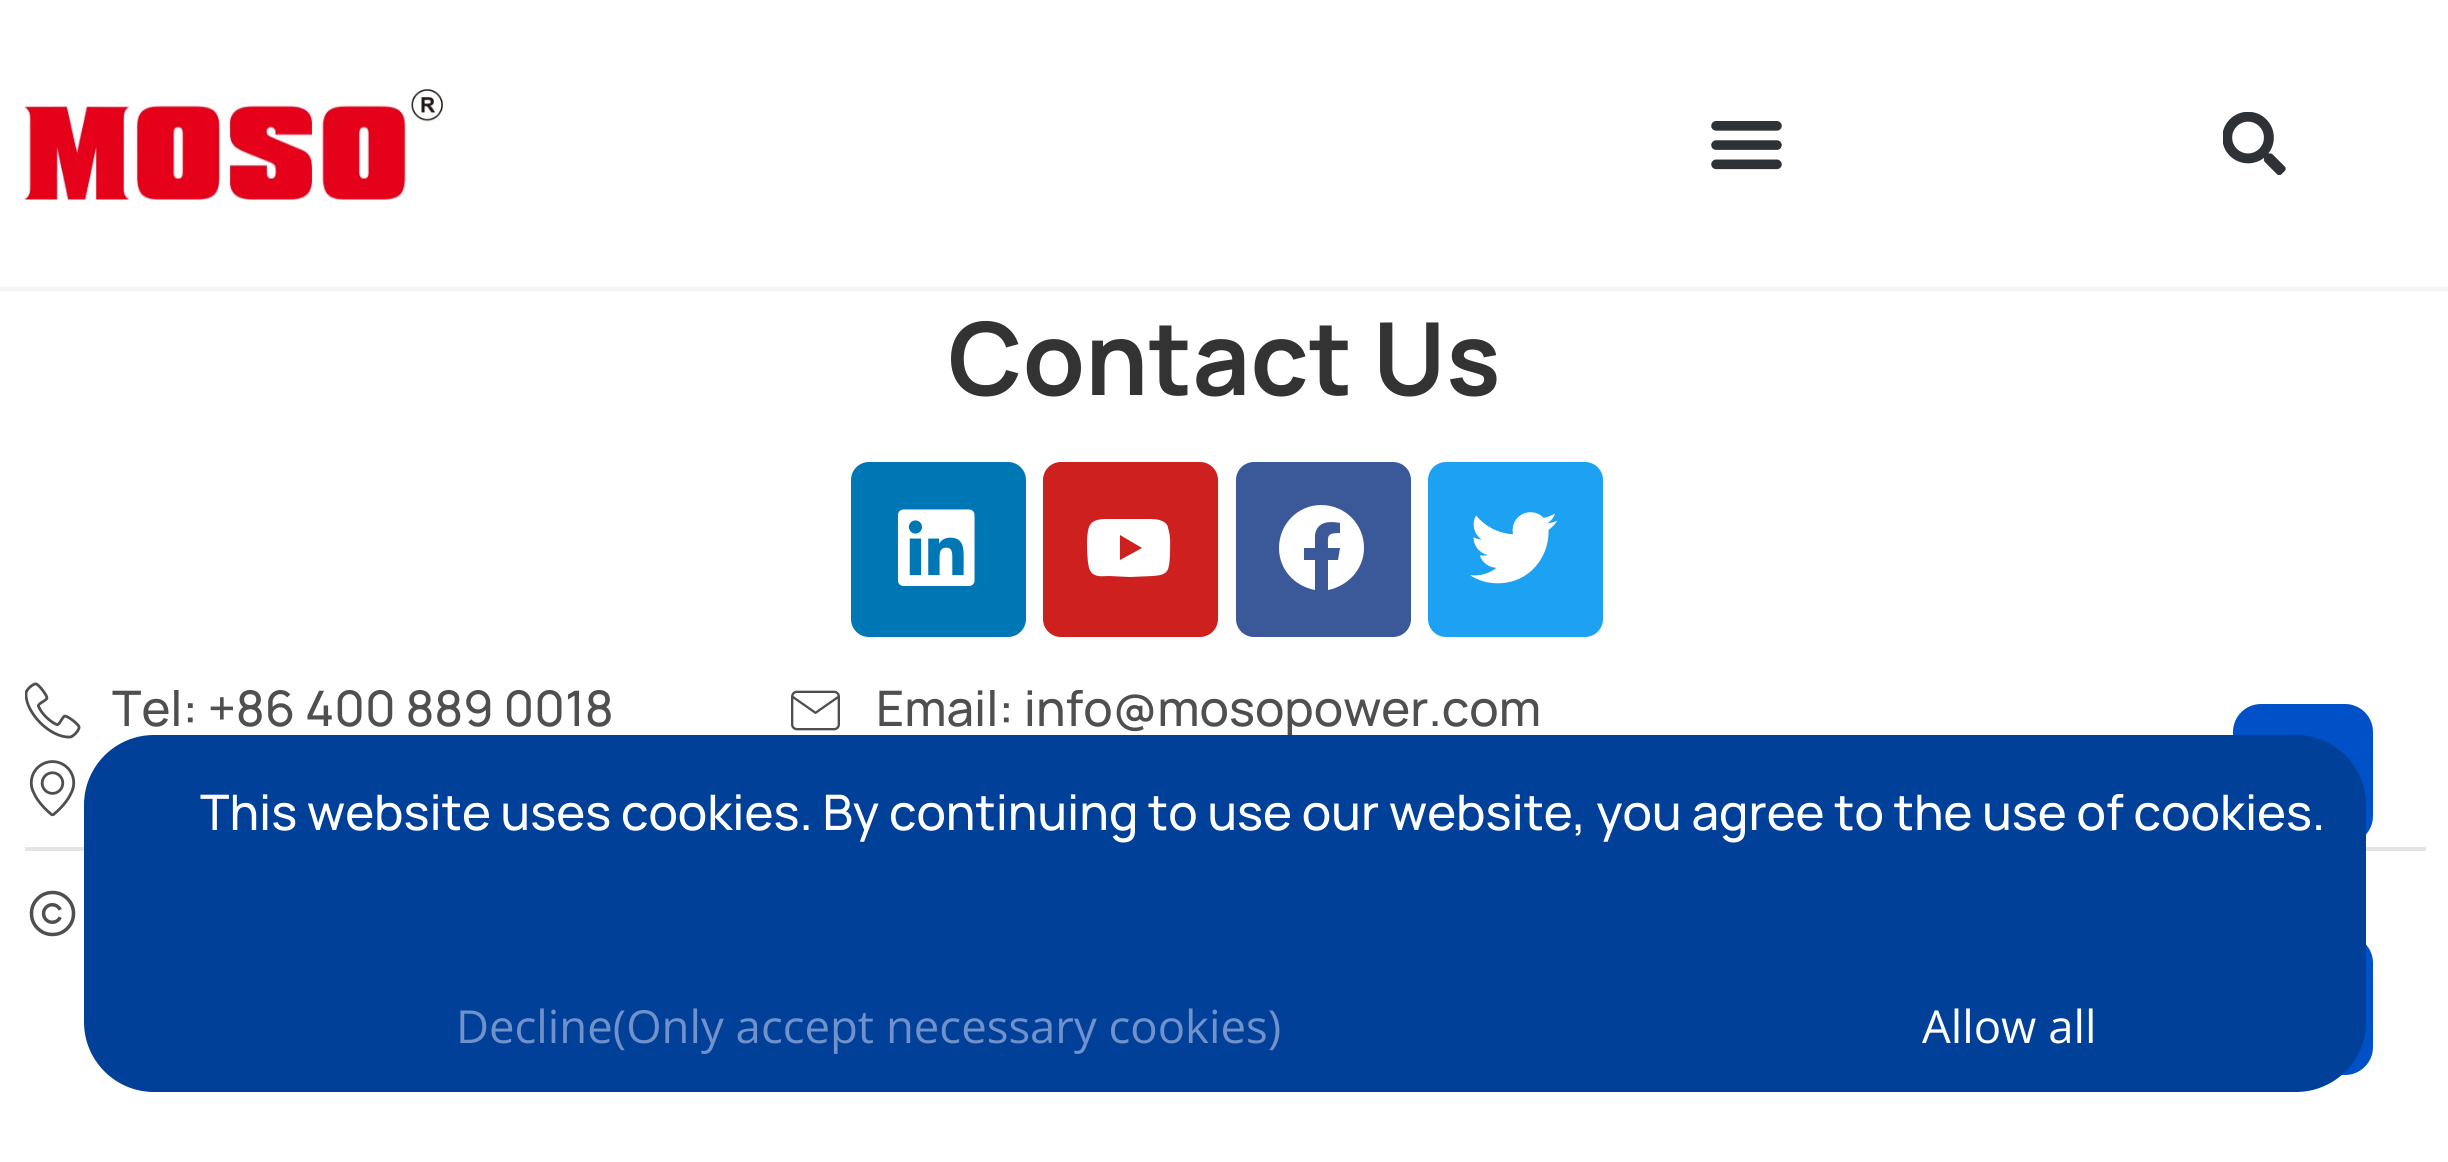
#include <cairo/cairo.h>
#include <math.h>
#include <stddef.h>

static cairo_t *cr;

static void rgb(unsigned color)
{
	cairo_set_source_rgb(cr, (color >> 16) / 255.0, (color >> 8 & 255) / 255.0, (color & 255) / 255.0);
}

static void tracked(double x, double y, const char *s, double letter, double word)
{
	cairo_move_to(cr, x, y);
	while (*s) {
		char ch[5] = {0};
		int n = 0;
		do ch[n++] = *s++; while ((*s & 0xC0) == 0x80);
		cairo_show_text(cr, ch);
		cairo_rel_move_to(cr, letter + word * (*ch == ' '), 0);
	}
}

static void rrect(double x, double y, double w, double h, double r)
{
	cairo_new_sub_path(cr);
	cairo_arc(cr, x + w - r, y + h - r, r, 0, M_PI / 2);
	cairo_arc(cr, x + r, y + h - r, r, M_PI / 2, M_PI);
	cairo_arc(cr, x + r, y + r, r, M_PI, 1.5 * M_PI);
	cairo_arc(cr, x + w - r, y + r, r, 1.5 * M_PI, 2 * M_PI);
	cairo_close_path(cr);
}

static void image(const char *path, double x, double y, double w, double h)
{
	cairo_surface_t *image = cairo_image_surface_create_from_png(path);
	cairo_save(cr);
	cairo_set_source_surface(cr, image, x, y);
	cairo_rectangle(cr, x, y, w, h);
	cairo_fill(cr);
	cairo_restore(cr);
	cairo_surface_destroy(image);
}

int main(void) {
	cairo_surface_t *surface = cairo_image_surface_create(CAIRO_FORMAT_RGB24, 2448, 1162);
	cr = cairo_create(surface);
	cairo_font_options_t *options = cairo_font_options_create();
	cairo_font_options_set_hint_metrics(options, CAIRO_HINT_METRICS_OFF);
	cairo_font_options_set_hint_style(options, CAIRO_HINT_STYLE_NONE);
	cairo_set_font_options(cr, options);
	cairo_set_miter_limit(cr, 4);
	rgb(0xffffff);
	cairo_paint(cr);
	rgb(0xf4f4f4);
	cairo_rectangle(cr, 0, 287, 2448, 4);
	cairo_fill(cr);
	image("img/1.png", 24, 88, 419, 112);
	image("img/2.png", 1711, 121, 71, 49);
	image("img/3.png", 2223, 112, 63, 63);
	rgb(0x0077b5);
	rrect(851, 462, 175, 175, 18);
	cairo_fill(cr);
	image("img/4.png", 897, 509, 78, 77);
	rgb(0xcd201f);
	rrect(1043, 462, 175, 175, 18);
	cairo_fill(cr);
	rgb(0xffffff);
	cairo_new_path(cr);
	cairo_move_to(cr, 1168, 528);
	cairo_curve_to(cr, 1168, 525, 1165, 522, 1162, 521);
	cairo_curve_to(cr, 1158, 519, 1153, 519, 1148, 519);
	cairo_line_to(cr, 1125, 519);
	cairo_line_to(cr, 1104, 519);
	cairo_curve_to(cr, 1089, 520, 1088, 526, 1087, 540);
	cairo_curve_to(cr, 1087, 549, 1087, 559, 1089, 568);
	cairo_curve_to(cr, 1090, 571, 1092, 574, 1095, 575);
	cairo_curve_to(cr, 1099, 577, 1105, 576, 1109, 576);
	cairo_line_to(cr, 1130, 577);
	cairo_line_to(cr, 1153, 576);
	cairo_curve_to(cr, 1169, 575, 1169, 570, 1170, 555);
	cairo_curve_to(cr, 1170, 546, 1171, 536, 1168, 528);
	cairo_close_path(cr);
	cairo_move_to(cr, 1120, 560);
	cairo_line_to(cr, 1120, 535);
	cairo_line_to(cr, 1142, 548);
	cairo_close_path(cr);
	cairo_fill(cr);
	rgb(0x3b5998);
	rrect(1236, 462, 175, 175, 18);
	cairo_fill(cr);
	rgb(0xffffff);
	cairo_new_path(cr);
	cairo_move_to(cr, 1364, 548);
	cairo_curve_to(cr, 1364, 524, 1345, 505, 1321, 505);
	cairo_curve_to(cr, 1298, 505, 1279, 524, 1279, 548);
	cairo_curve_to(cr, 1279, 569, 1294, 586, 1315, 590);
	cairo_line_to(cr, 1315, 560);
	cairo_line_to(cr, 1304, 560);
	cairo_line_to(cr, 1304, 548);
	cairo_line_to(cr, 1315, 548);
	cairo_line_to(cr, 1315, 535);
	cairo_curve_to(cr, 1317, 521, 1330, 521, 1340, 523);
	cairo_line_to(cr, 1340, 533);
	cairo_curve_to(cr, 1326, 533, 1328, 536, 1328, 548);
	cairo_line_to(cr, 1340, 548);
	cairo_line_to(cr, 1338, 560);
	cairo_line_to(cr, 1328, 560);
	cairo_line_to(cr, 1328, 590);
	cairo_curve_to(cr, 1348, 586, 1364, 569, 1364, 548);
	cairo_close_path(cr);
	cairo_fill(cr);
	rgb(0x1da1f2);
	rrect(1428, 462, 175, 175, 18);
	cairo_fill(cr);
	image("img/5.png", 1470, 512, 88, 72);
	image("img/6.png", 25, 682, 56, 57);
	image("img/7.png", 791, 690, 49, 41);
	image("img/8.png", 29, 760, 47, 57);
	rgb(0xe4e4e4);
	cairo_rectangle(cr, 25, 847, 2401, 4);
	cairo_fill(cr);
	image("img/9.png", 29, 890, 47, 47);
	rgb(0x0050c8);
	rrect(2233, 704, 140, 140, 28);
	cairo_fill(cr);
	rrect(2233, 935, 140, 140, 28);
	cairo_fill(cr);
	cairo_select_font_face(cr, "Manrope", CAIRO_FONT_SLANT_NORMAL, CAIRO_FONT_WEIGHT_BOLD);
	cairo_set_font_size(cr, 100.75);
	rgb(0x333333);
	tracked(948, 395, "Contact Us", 0.25, 0);
	cairo_select_font_face(cr, "Manrope Medium", CAIRO_FONT_SLANT_NORMAL, CAIRO_FONT_WEIGHT_NORMAL);
	cairo_set_font_size(cr, 49);
	rgb(0x4f4f4f);
	cairo_move_to(cr, 112, 726);
	cairo_show_text(cr, "Tel: +86 400 889 0018");
	cairo_move_to(cr, 876, 726);
	cairo_show_text(cr, "Email: info@mosopower.com");
	rgb(0x004098);
	rrect(84, 735, 2282, 357, 70);
	cairo_fill(cr);
	rgb(0xffffff);
	cairo_move_to(cr, 200, 830);
	cairo_show_text(cr, "This website uses cookies. By continuing to use our website, you agree to the use of cookies.");
	cairo_select_font_face(cr, "Open Sans", CAIRO_FONT_SLANT_NORMAL, CAIRO_FONT_WEIGHT_NORMAL);
	cairo_set_font_size(cr, 45.5);
	rgb(0x7191ca);
	cairo_move_to(cr, 456, 1043);
	cairo_show_text(cr, "Decline(Only accept necessary cookies)");
	rgb(0xffffff);
	cairo_move_to(cr, 1922, 1043);
	cairo_show_text(cr, "Allow all");
	cairo_surface_write_to_png(surface, "page.png");
	cairo_font_options_destroy(options);
	cairo_destroy(cr);
	cairo_surface_destroy(surface);
	return 0;
}
